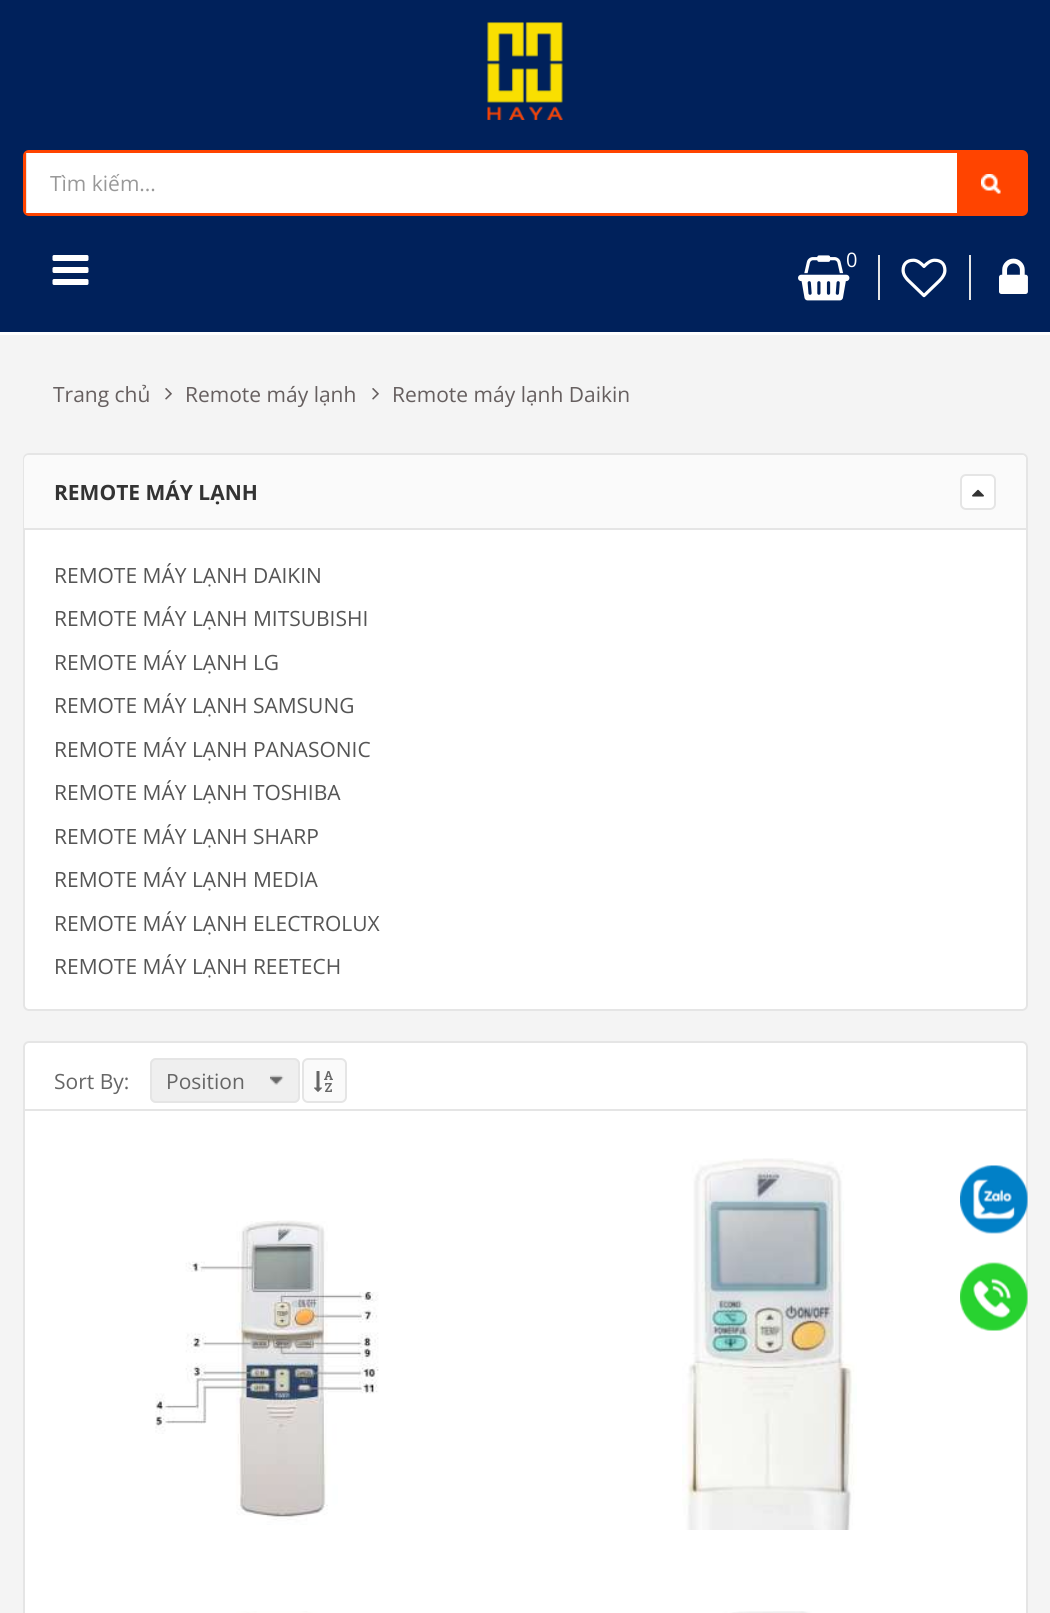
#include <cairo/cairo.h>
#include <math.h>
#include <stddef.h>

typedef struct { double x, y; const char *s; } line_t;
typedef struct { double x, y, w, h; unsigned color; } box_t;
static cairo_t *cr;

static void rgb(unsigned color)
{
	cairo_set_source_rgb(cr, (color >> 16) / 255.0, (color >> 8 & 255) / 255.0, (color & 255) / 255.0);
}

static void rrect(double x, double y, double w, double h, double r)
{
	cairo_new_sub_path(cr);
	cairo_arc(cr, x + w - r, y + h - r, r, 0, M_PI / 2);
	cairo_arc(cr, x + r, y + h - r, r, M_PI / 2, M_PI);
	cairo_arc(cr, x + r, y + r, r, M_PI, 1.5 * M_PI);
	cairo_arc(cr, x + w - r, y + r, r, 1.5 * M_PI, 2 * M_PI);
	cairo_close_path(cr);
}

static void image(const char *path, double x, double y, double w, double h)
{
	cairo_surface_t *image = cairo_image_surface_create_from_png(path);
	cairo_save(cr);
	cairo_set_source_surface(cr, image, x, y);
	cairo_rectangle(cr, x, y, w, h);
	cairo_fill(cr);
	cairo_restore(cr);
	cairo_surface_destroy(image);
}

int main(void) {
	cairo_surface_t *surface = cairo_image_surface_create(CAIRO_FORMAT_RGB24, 1050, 1613);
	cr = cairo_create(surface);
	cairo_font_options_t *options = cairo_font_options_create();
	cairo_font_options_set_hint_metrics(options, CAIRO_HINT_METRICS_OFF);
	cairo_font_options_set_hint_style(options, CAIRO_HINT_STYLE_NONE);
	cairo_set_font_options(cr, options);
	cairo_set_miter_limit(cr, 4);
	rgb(0xf4f4f4);
	cairo_paint(cr);
	rgb(0x00215b);
	cairo_rectangle(cr, 0, 0, 1050, 332);
	cairo_fill(cr);
	rgb(0xffffff);
	cairo_rectangle(cr, 0, 332, 1050, 3);
	cairo_fill(cr);
	image("img/1.png", 487, 22, 76, 98);
	rrect(24.5, 151.5, 1002, 63, 4.5);
	rgb(0xff4400);
	cairo_set_line_width(cr, 3);
	cairo_stroke(cr);
	{
		static const box_t items[] = {
			{26, 153, 1, 60, 0xe5e5e5},
			{27, 153, 930, 60, 0xffffff},
			{957, 153, 68, 60, 0xff4400},
		};
		for (size_t i = 0; i < sizeof items / sizeof *items; i++) {
			rgb(items[i].color);
			cairo_rectangle(cr, items[i].x, items[i].y, items[i].w, items[i].h);
			cairo_fill(cr);
		}
	}
	image("img/2.png", 981, 174, 20, 20);
	image("img/3.png", 798, 255, 52, 46);
	rgb(0xe5e5e5);
	cairo_rectangle(cr, 969, 255, 2, 45);
	cairo_fill(cr);
	cairo_rectangle(cr, 878, 255, 2, 45);
	cairo_fill(cr);
	image("img/4.png", 901, 258, 46, 40);
	image("img/5.png", 999, 258, 29, 36);
	image("img/6.png", 52, 255, 37, 30);
	image("img/7.png", 165, 388, 7, 12);
	image("img/7.png", 372, 388, 7, 12);
	rgb(0xffffff);
	rrect(24, 454, 1003, 556, 5);
	cairo_fill_preserve(cr);
	rgb(0xe5e5e5);
	cairo_set_line_width(cr, 2);
	cairo_stroke(cr);
	rgb(0xfafafa);
	cairo_new_path(cr);
	cairo_move_to(cr, 29, 455);
	cairo_line_to(cr, 1021, 455);
	cairo_curve_to(cr, 1024, 455, 1026, 457, 1026, 460);
	cairo_line_to(cr, 1026, 528);
	cairo_line_to(cr, 24, 528);
	cairo_line_to(cr, 24, 460);
	cairo_curve_to(cr, 24, 457, 26, 455, 29, 455);
	cairo_close_path(cr);
	cairo_fill(cr);
	rgb(0xffffff);
	rrect(961, 475, 34, 34, 5);
	cairo_fill_preserve(cr);
	rgb(0xe5e5e5);
	cairo_stroke(cr);
	image("img/8.png", 972, 489, 12, 8);
	cairo_rectangle(cr, 24, 528, 1002, 2);
	cairo_fill(cr);
	rgb(0xffffff);
	rrect(24, 1042, 1003, 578, 5);
	cairo_fill_preserve(cr);
	rgb(0xe5e5e5);
	cairo_stroke(cr);
	cairo_rectangle(cr, 24, 1109, 1002, 2);
	cairo_fill(cr);
	rgb(0xefefef);
	rrect(150, 1058, 150, 45, 6);
	cairo_fill(cr);
	image("img/9.png", 270, 1075, 14, 10);
	rrect(151, 1059, 148, 43, 5);
	rgb(0xe5e5e5);
	cairo_stroke(cr);
	rgb(0xfafafa);
	rrect(303, 1059, 43, 43, 5);
	cairo_fill_preserve(cr);
	rgb(0xe5e5e5);
	cairo_stroke(cr);
	image("img/10.png", 314, 1071, 19, 21);
	image("img/11.png", 155, 1220, 224, 305);
	image("img/12.png", 682, 1158, 175, 372);
	image("img/13.png", 150, 1601, 262, 12);
	image("img/14.png", 636, 1530, 265, 83);
	image("img/15.png", 960, 1165, 68, 69);
	image("img/16.png", 960, 1262, 68, 69);
	cairo_select_font_face(cr, "Open Sans", CAIRO_FONT_SLANT_NORMAL, CAIRO_FONT_WEIGHT_NORMAL);
	cairo_set_font_size(cr, 21);
	rgb(0x999999);
	cairo_move_to(cr, 50, 191);
	cairo_show_text(cr, "Tìm kiếm...");
	cairo_set_font_size(cr, 20);
	rgb(0xffffff);
	cairo_move_to(cr, 846, 267);
	cairo_show_text(cr, "0");
	cairo_set_font_size(cr, 21);
	rgb(0x665f5f);
	{
		static const line_t items[] = {
			{53, 402, "Trang chủ"},
			{185, 402, "Remote máy lạnh"},
			{392, 402, "Remote máy lạnh Daikin"},
		};
		for (size_t i = 0; i < sizeof items / sizeof *items; i++) {
			cairo_move_to(cr, items[i].x, items[i].y);
			cairo_show_text(cr, items[i].s);
		}
	}
	cairo_select_font_face(cr, "Open Sans", CAIRO_FONT_SLANT_NORMAL, CAIRO_FONT_WEIGHT_BOLD);
	rgb(0x333333);
	cairo_move_to(cr, 54, 500);
	cairo_show_text(cr, "REMOTE MÁY LẠNH");
	cairo_select_font_face(cr, "Open Sans", CAIRO_FONT_SLANT_NORMAL, CAIRO_FONT_WEIGHT_NORMAL);
	rgb(0x555555);
	{
		static const line_t items[] = {
			{54, 583, "REMOTE MÁY LẠNH DAIKIN"},
			{54, 626, "REMOTE MÁY LẠNH MITSUBISHI"},
			{54, 670, "REMOTE MÁY LẠNH LG"},
			{54, 713, "REMOTE MÁY LẠNH SAMSUNG"},
			{54, 757, "REMOTE MÁY LẠNH PANASONIC"},
			{54, 800, "REMOTE MÁY LẠNH TOSHIBA"},
			{54, 844, "REMOTE MÁY LẠNH SHARP"},
			{54, 887, "REMOTE MÁY LẠNH MEDIA"},
			{54, 931, "REMOTE MÁY LẠNH ELECTROLUX"},
			{54, 974, "REMOTE MÁY LẠNH REETECH"},
		};
		for (size_t i = 0; i < sizeof items / sizeof *items; i++) {
			cairo_move_to(cr, items[i].x, items[i].y);
			cairo_show_text(cr, items[i].s);
		}
	}
	rgb(0x666666);
	cairo_move_to(cr, 54, 1089);
	cairo_show_text(cr, "Sort By:");
	cairo_move_to(cr, 166, 1089);
	cairo_show_text(cr, "Position");
	cairo_surface_write_to_png(surface, "page.png");
	cairo_font_options_destroy(options);
	cairo_destroy(cr);
	cairo_surface_destroy(surface);
	return 0;
}
